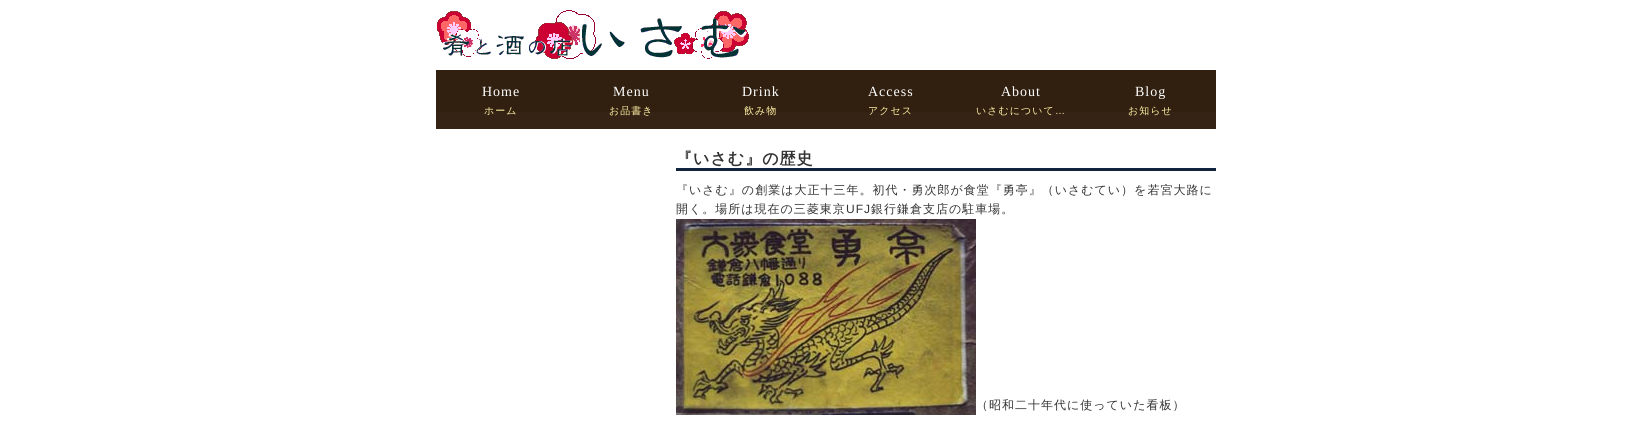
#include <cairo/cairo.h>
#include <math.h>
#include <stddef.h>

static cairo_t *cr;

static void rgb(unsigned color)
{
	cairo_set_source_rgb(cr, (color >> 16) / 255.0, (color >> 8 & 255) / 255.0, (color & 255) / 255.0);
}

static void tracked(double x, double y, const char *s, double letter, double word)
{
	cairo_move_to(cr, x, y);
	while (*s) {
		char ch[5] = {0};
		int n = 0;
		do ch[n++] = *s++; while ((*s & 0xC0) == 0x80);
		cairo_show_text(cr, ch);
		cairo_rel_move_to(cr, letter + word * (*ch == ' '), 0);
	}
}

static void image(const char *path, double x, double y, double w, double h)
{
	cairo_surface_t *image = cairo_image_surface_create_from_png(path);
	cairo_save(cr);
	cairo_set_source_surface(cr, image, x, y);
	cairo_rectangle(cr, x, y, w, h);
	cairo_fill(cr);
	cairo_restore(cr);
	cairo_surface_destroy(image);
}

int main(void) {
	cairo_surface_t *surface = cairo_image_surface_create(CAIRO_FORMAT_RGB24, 1652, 424);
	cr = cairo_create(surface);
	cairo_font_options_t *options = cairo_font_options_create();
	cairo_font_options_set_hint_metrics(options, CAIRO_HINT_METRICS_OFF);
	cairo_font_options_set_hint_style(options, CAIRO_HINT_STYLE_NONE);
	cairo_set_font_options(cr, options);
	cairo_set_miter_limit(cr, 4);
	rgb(0xffffff);
	cairo_paint(cr);
	image("img/1.png", 437, 10, 312, 49);
	image("img/2.png", 436, 70, 130, 59);
	image("img/2.png", 566, 70, 130, 59);
	image("img/2.png", 696, 70, 130, 59);
	image("img/2.png", 826, 70, 130, 59);
	image("img/2.png", 956, 70, 130, 59);
	image("img/2.png", 1086, 70, 130, 59);
	rgb(0x11233d);
	cairo_rectangle(cr, 676, 168, 540, 3);
	cairo_fill(cr);
	image("img/3.png", 676, 219, 300, 196);
	cairo_select_font_face(cr, "Liberation Serif", CAIRO_FONT_SLANT_NORMAL, CAIRO_FONT_WEIGHT_NORMAL);
	cairo_set_font_size(cr, 14);
	rgb(0xffffff);
	tracked(482, 96, "Home", 1, 0);
	cairo_select_font_face(cr, "WenQuanYi Zen Hei Medium", CAIRO_FONT_SLANT_NORMAL, CAIRO_FONT_WEIGHT_NORMAL);
	cairo_set_font_size(cr, 10);
	rgb(0xfff1a4);
	tracked(484, 114, "ホーム", 1, 0);
	cairo_select_font_face(cr, "Liberation Serif", CAIRO_FONT_SLANT_NORMAL, CAIRO_FONT_WEIGHT_NORMAL);
	cairo_set_font_size(cr, 14);
	rgb(0xffffff);
	tracked(613, 96, "Menu", 1, 0);
	cairo_select_font_face(cr, "WenQuanYi Zen Hei Medium", CAIRO_FONT_SLANT_NORMAL, CAIRO_FONT_WEIGHT_NORMAL);
	cairo_set_font_size(cr, 10);
	rgb(0xfff1a4);
	tracked(609, 114, "お品書き", 1, 0);
	cairo_select_font_face(cr, "Liberation Serif", CAIRO_FONT_SLANT_NORMAL, CAIRO_FONT_WEIGHT_NORMAL);
	cairo_set_font_size(cr, 14);
	rgb(0xffffff);
	tracked(742, 96, "Drink", 1, 0);
	cairo_select_font_face(cr, "WenQuanYi Zen Hei Medium", CAIRO_FONT_SLANT_NORMAL, CAIRO_FONT_WEIGHT_NORMAL);
	cairo_set_font_size(cr, 10);
	rgb(0xfff1a4);
	tracked(744, 114, "飲み物", 1, 0);
	cairo_select_font_face(cr, "Liberation Serif", CAIRO_FONT_SLANT_NORMAL, CAIRO_FONT_WEIGHT_NORMAL);
	cairo_set_font_size(cr, 14);
	rgb(0xffffff);
	tracked(868, 96, "Access", 1, 0);
	cairo_select_font_face(cr, "WenQuanYi Zen Hei Medium", CAIRO_FONT_SLANT_NORMAL, CAIRO_FONT_WEIGHT_NORMAL);
	cairo_set_font_size(cr, 10);
	rgb(0xfff1a4);
	tracked(868, 114, "アクセス", 1, 0);
	cairo_select_font_face(cr, "Liberation Serif", CAIRO_FONT_SLANT_NORMAL, CAIRO_FONT_WEIGHT_NORMAL);
	cairo_set_font_size(cr, 14);
	rgb(0xffffff);
	tracked(1001, 96, "About", 1, 0);
	cairo_select_font_face(cr, "WenQuanYi Zen Hei Medium", CAIRO_FONT_SLANT_NORMAL, CAIRO_FONT_WEIGHT_NORMAL);
	cairo_set_font_size(cr, 10);
	rgb(0xfff1a4);
	tracked(976, 114, "いさむについて", 1, 0);
	cairo_select_font_face(cr, "Liberation Sans", CAIRO_FONT_SLANT_NORMAL, CAIRO_FONT_WEIGHT_NORMAL);
	tracked(1055, 114, "…", 1, 0);
	cairo_select_font_face(cr, "Liberation Serif", CAIRO_FONT_SLANT_NORMAL, CAIRO_FONT_WEIGHT_NORMAL);
	cairo_set_font_size(cr, 14);
	rgb(0xffffff);
	tracked(1135, 96, "Blog", 1, 0);
	cairo_select_font_face(cr, "WenQuanYi Zen Hei Medium", CAIRO_FONT_SLANT_NORMAL, CAIRO_FONT_WEIGHT_NORMAL);
	cairo_set_font_size(cr, 10);
	rgb(0xfff1a4);
	tracked(1128, 114, "お知らせ", 1, 0);
	cairo_select_font_face(cr, "WenQuanYi Zen Hei", CAIRO_FONT_SLANT_NORMAL, CAIRO_FONT_WEIGHT_BOLD);
	cairo_set_font_size(cr, 16);
	rgb(0x333333);
	tracked(676, 164, "『いさむ』の歴史", 1, 0);
	cairo_select_font_face(cr, "WenQuanYi Zen Hei Medium", CAIRO_FONT_SLANT_NORMAL, CAIRO_FONT_WEIGHT_NORMAL);
	cairo_set_font_size(cr, 12);
	tracked(676, 194, "『いさむ』の創業は大正十三年。初代・勇次郎が食堂『勇亭』（いさむてい）を若宮大路に", 1, 0);
	tracked(676, 213, "開く。場所は現在の三菱東京", 1, 0);
	cairo_select_font_face(cr, "Liberation Sans", CAIRO_FONT_SLANT_NORMAL, CAIRO_FONT_WEIGHT_NORMAL);
	tracked(846, 213, "UFJ", 1, 0);
	cairo_select_font_face(cr, "WenQuanYi Zen Hei Medium", CAIRO_FONT_SLANT_NORMAL, CAIRO_FONT_WEIGHT_NORMAL);
	tracked(871, 213, "銀行鎌倉支店の駐車場。", 1, 0);
	tracked(976, 409, "（昭和二十年代に使っていた看板）", 1, 0);
	cairo_surface_write_to_png(surface, "page.png");
	cairo_font_options_destroy(options);
	cairo_destroy(cr);
	cairo_surface_destroy(surface);
	return 0;
}
